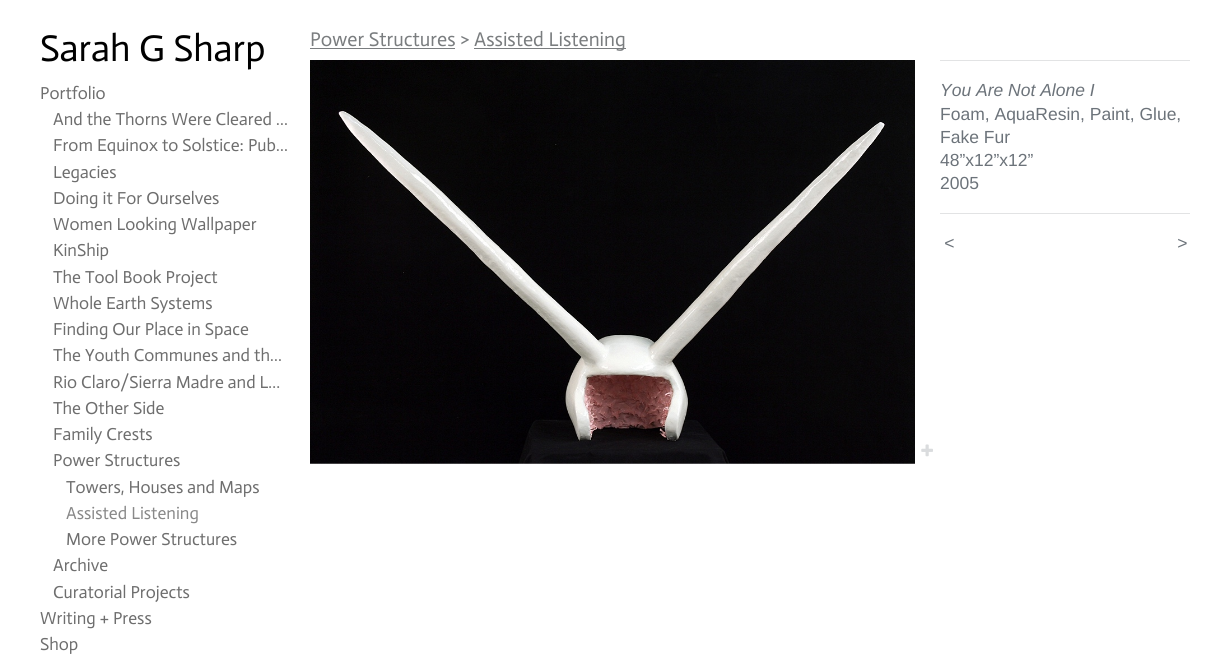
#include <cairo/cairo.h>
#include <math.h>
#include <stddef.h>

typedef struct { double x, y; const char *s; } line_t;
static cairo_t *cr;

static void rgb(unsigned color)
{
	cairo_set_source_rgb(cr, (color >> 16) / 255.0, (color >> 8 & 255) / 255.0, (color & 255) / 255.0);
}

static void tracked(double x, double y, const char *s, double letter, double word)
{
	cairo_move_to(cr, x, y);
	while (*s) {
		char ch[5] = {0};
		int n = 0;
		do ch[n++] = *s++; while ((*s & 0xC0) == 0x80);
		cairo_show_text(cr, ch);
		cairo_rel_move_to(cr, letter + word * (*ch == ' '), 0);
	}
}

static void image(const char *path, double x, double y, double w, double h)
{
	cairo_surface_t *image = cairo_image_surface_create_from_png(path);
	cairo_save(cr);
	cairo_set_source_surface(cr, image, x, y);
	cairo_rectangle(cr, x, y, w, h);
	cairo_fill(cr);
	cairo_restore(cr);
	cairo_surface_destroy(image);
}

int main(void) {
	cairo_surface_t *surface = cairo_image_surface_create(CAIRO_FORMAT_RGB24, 1230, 670);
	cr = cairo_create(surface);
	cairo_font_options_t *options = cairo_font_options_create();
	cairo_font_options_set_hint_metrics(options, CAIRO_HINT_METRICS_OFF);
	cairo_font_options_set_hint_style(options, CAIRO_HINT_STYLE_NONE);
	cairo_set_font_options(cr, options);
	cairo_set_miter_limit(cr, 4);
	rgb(0xffffff);
	cairo_paint(cr);
	rgb(0x7a7d7f);
	cairo_rectangle(cr, 310, 48, 145, 1);
	cairo_fill(cr);
	cairo_rectangle(cr, 474, 48, 152, 1);
	cairo_fill(cr);
	image("img/1.png", 310, 60, 605, 404);
	image("img/2.png", 921, 444, 12, 13);
	rgb(0xe2e3e4);
	cairo_rectangle(cr, 940, 60, 250, 1);
	cairo_fill(cr);
	cairo_rectangle(cr, 940, 213, 250, 1);
	cairo_fill(cr);
	cairo_select_font_face(cr, "Actor", CAIRO_FONT_SLANT_NORMAL, CAIRO_FONT_WEIGHT_NORMAL);
	cairo_set_font_size(cr, 37.5);
	rgb(0x000000);
	cairo_move_to(cr, 40, 61);
	cairo_show_text(cr, "Sarah G Sharp");
	cairo_set_font_size(cr, 17.5);
	rgb(0x6e6e6e);
	{
		static const line_t items[] = {
			{40, 99, "Portfolio"},
			{53, 125, "And the Thorns Were Cleared …"},
			{53, 151, "From Equinox to Solstice: Pub…"},
			{53, 178, "Legacies"},
			{53, 204, "Doing it For Ourselves"},
			{53, 230, "Women Looking Wallpaper"},
			{53, 256, "KinShip"},
			{53, 283, "The Tool Book Project"},
			{53, 309, "Whole Earth Systems"},
			{53, 335, "Finding Our Place in Space"},
			{53, 361, "The Youth Communes and th…"},
			{53, 388, "Rio Claro/Sierra Madre and L…"},
			{53, 414, "The Other Side"},
			{53, 440, "Family Crests"},
			{53, 466, "Power Structures"},
			{66, 493, "Towers, Houses and Maps"},
		};
		for (size_t i = 0; i < sizeof items / sizeof *items; i++) {
			cairo_move_to(cr, items[i].x, items[i].y);
			cairo_show_text(cr, items[i].s);
		}
	}
	rgb(0x888888);
	cairo_move_to(cr, 66, 519);
	cairo_show_text(cr, "Assisted Listening");
	rgb(0x6e6e6e);
	{
		static const line_t items[] = {
			{66, 545, "More Power Structures"},
			{53, 571, "Archive"},
			{53, 598, "Curatorial Projects"},
			{40, 624, "Writing + Press"},
			{40, 650, "Shop"},
		};
		for (size_t i = 0; i < sizeof items / sizeof *items; i++) {
			cairo_move_to(cr, items[i].x, items[i].y);
			cairo_show_text(cr, items[i].s);
		}
	}
	cairo_set_font_size(cr, 20);
	rgb(0x7a7d7f);
	cairo_move_to(cr, 310, 46);
	cairo_show_text(cr, "Power Structures >");
	cairo_move_to(cr, 474, 46);
	cairo_show_text(cr, "Assisted Listening");
	cairo_select_font_face(cr, "Liberation Sans", CAIRO_FONT_SLANT_ITALIC, CAIRO_FONT_WEIGHT_NORMAL);
	cairo_set_font_size(cr, 17.5);
	rgb(0x6c737a);
	cairo_move_to(cr, 940, 96);
	cairo_show_text(cr, "You Are Not Alone I");
	cairo_select_font_face(cr, "Liberation Sans", CAIRO_FONT_SLANT_NORMAL, CAIRO_FONT_WEIGHT_NORMAL);
	{
		static const line_t items[] = {
			{940, 120, "Foam, AquaResin, Paint, Glue,"},
			{940, 143, "Fake Fur"},
			{940, 166, "48”x12”x12”"},
			{940, 189, "2005"},
		};
		for (size_t i = 0; i < sizeof items / sizeof *items; i++) {
			cairo_move_to(cr, items[i].x, items[i].y);
			cairo_show_text(cr, items[i].s);
		}
	}
	cairo_select_font_face(cr, "Liberation Sans", CAIRO_FONT_SLANT_ITALIC, CAIRO_FONT_WEIGHT_NORMAL);
	tracked(944, 249, "<", 1, 0);
	tracked(1177, 249, ">", 1, 0);
	cairo_surface_write_to_png(surface, "page.png");
	cairo_font_options_destroy(options);
	cairo_destroy(cr);
	cairo_surface_destroy(surface);
	return 0;
}
